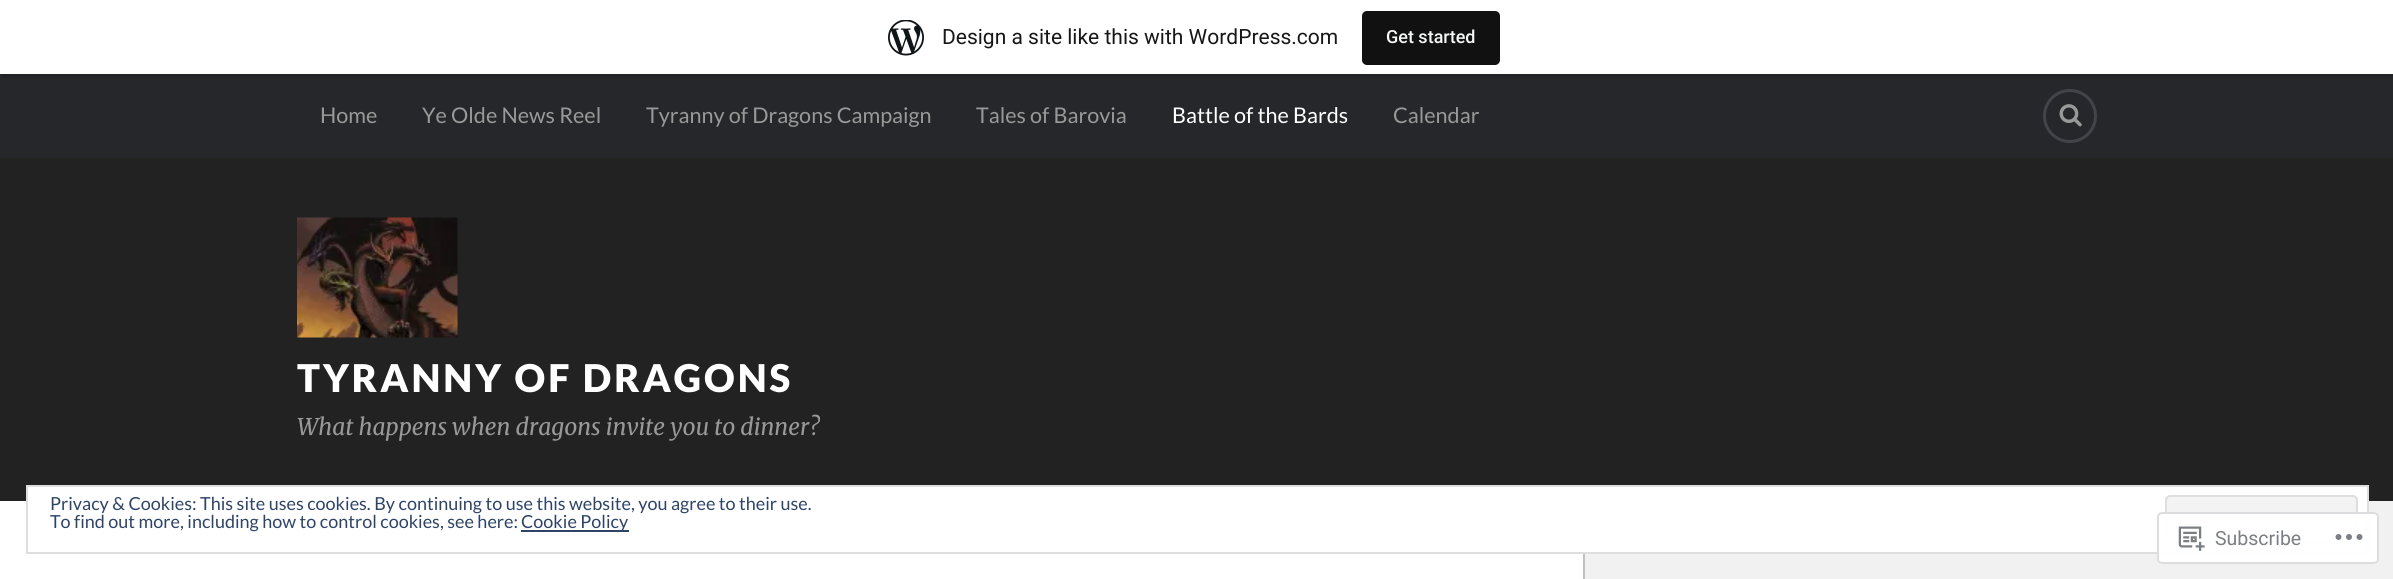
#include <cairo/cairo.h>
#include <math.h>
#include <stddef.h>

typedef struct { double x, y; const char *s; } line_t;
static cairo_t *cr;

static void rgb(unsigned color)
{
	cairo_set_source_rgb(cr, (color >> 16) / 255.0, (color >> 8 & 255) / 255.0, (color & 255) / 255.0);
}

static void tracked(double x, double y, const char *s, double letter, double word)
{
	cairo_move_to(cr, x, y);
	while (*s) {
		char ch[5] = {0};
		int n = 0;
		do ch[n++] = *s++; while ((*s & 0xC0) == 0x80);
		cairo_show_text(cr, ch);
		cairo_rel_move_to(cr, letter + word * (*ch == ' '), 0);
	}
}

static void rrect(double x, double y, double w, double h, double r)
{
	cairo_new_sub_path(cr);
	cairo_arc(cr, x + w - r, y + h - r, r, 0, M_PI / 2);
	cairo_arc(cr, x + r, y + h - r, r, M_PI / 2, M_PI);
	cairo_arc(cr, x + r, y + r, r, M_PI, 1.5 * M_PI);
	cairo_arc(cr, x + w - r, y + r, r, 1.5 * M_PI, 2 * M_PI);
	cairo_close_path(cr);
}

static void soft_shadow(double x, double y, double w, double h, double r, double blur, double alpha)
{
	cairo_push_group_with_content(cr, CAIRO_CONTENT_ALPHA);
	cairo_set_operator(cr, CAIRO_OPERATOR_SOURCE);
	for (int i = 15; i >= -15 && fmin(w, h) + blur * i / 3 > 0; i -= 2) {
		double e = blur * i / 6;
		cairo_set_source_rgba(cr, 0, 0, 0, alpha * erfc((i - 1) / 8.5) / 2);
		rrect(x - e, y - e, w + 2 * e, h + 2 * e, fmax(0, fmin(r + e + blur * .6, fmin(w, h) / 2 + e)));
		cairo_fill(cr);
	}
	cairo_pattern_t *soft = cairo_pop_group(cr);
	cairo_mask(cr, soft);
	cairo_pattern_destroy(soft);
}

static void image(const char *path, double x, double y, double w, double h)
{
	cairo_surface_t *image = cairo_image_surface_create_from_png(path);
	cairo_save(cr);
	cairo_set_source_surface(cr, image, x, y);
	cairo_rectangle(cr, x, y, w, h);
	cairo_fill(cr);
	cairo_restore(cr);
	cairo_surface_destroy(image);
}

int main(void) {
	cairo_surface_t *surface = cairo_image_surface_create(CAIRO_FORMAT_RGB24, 2393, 579);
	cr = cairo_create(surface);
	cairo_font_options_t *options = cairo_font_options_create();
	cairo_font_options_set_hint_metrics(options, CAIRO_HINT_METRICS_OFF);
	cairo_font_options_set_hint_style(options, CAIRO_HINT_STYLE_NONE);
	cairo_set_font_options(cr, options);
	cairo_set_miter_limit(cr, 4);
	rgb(0xf1f1f1);
	cairo_paint(cr);
	rgb(0x26272b);
	cairo_rectangle(cr, 0, 74, 2393, 84);
	cairo_fill(cr);
	rgb(0x000000);
	soft_shadow(0, 2, 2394, 73, 0, 1.5, 0.05);
	rgb(0x222327);
	cairo_new_path(cr);
	cairo_move_to(cr, 2, 74);
	cairo_line_to(cr, 2, 78);
	cairo_line_to(cr, 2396, 78);
	cairo_line_to(cr, 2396, 5);
	cairo_line_to(cr, 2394, 5);
	cairo_line_to(cr, 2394, 74);
	cairo_close_path(cr);
	cairo_fill(cr);
	rgb(0xffffff);
	cairo_rectangle(cr, 0, 0, 2393, 74);
	cairo_fill(cr);
	image("img/1.png", 888, 20, 36, 36);
	rgb(0x111111);
	rrect(1362, 11, 138, 54, 5);
	cairo_fill(cr);
	cairo_arc(cr, 2070, 116, 25.5, 0, 2 * M_PI);
	rgb(0x42444a);
	cairo_set_line_width(cr, 3);
	cairo_stroke(cr);
	image("img/2.png", 2059, 104, 23, 23);
	rgb(0x222222);
	cairo_rectangle(cr, 0, 158, 2393, 343);
	cairo_fill(cr);
	image("img/3.png", 297, 217, 161, 121);
	rgb(0xffffff);
	cairo_rectangle(cr, 0, 501, 1583, 78);
	cairo_fill(cr);
	cairo_rectangle(cr, 27, 486, 2341, 67);
	cairo_fill_preserve(cr);
	rgb(0xdedede);
	cairo_set_line_width(cr, 2);
	cairo_stroke(cr);
	rgb(0xf3f3f3);
	rrect(2166, 496, 191, 46, 4);
	cairo_fill_preserve(cr);
	rgb(0xdedede);
	cairo_stroke(cr);
	rgb(0x2e4467);
	cairo_rectangle(cr, 521, 530, 108, 2);
	cairo_fill(cr);
	rgb(0xc1c1c1);
	cairo_rectangle(cr, 1583, 554, 2, 25);
	cairo_fill(cr);
	cairo_set_source_rgba(cr, 1, 1, 1, 0.98);
	rrect(2157, 512, 222, 52, 5);
	cairo_fill(cr);
	rrect(2158, 513, 220, 50, 4);
	cairo_set_source_rgba(cr, 0.863, 0.863, 0.871, 0.98);
	cairo_stroke(cr);
	image("img/4.png", 2178, 526, 27, 25);
	image("img/5.png", 2335, 534, 28, 6);
	cairo_select_font_face(cr, "Roboto", CAIRO_FONT_SLANT_NORMAL, CAIRO_FONT_WEIGHT_NORMAL);
	cairo_set_font_size(cr, 21);
	rgb(0x171717);
	cairo_move_to(cr, 942, 44);
	cairo_show_text(cr, "Design a site like this with WordPress.com");
	cairo_select_font_face(cr, "Roboto Medium", CAIRO_FONT_SLANT_NORMAL, CAIRO_FONT_WEIGHT_NORMAL);
	cairo_set_font_size(cr, 18);
	rgb(0xf6f7f7);
	cairo_move_to(cr, 1386, 43);
	cairo_show_text(cr, "Get started");
	cairo_select_font_face(cr, "Lato", CAIRO_FONT_SLANT_NORMAL, CAIRO_FONT_WEIGHT_NORMAL);
	cairo_set_font_size(cr, 21.6);
	rgb(0x999999);
	{
		static const line_t items[] = {
			{320, 123, "Home"},
			{422, 123, "Ye Olde News Reel"},
			{646, 123, "Tyranny of Dragons Campaign"},
			{976, 123, "Tales of Barovia"},
		};
		for (size_t i = 0; i < sizeof items / sizeof *items; i++) {
			cairo_move_to(cr, items[i].x, items[i].y);
			cairo_show_text(cr, items[i].s);
		}
	}
	rgb(0xffffff);
	cairo_move_to(cr, 1172, 123);
	cairo_show_text(cr, "Battle of the Bards");
	rgb(0x999999);
	cairo_move_to(cr, 1393, 123);
	cairo_show_text(cr, "Calendar");
	cairo_select_font_face(cr, "Lato Black", CAIRO_FONT_SLANT_NORMAL, CAIRO_FONT_WEIGHT_NORMAL);
	cairo_set_font_size(cr, 38.25);
	rgb(0xffffff);
	tracked(297, 392, "TYRANNY OF DRAGONS", 3, 0);
	cairo_select_font_face(cr, "Merriweather Light", CAIRO_FONT_SLANT_ITALIC, CAIRO_FONT_WEIGHT_NORMAL);
	cairo_set_font_size(cr, 22.95);
	rgb(0x999999);
	cairo_move_to(cr, 297, 435);
	cairo_show_text(cr, "What happens when dragons invite you to dinner?");
	cairo_select_font_face(cr, "Lato", CAIRO_FONT_SLANT_NORMAL, CAIRO_FONT_WEIGHT_NORMAL);
	cairo_set_font_size(cr, 18);
	rgb(0x2e4467);
	{
		static const line_t items[] = {
			{50, 510, "Privacy & Cookies: This site uses cookies. By continuing to use this website, you agree to their use."},
			{50, 528, "To find out more, including how to control cookies, see here:"},
			{521, 528, "Cookie Policy"},
		};
		for (size_t i = 0; i < sizeof items / sizeof *items; i++) {
			cairo_move_to(cr, items[i].x, items[i].y);
			cairo_show_text(cr, items[i].s);
		}
	}
	cairo_select_font_face(cr, "Roboto", CAIRO_FONT_SLANT_NORMAL, CAIRO_FONT_WEIGHT_NORMAL);
	cairo_set_font_size(cr, 19.5);
	rgb(0x7b7f84);
	cairo_move_to(cr, 2215, 545);
	cairo_show_text(cr, "Subscribe");
	cairo_surface_write_to_png(surface, "page.png");
	cairo_font_options_destroy(options);
	cairo_destroy(cr);
	cairo_surface_destroy(surface);
	return 0;
}
